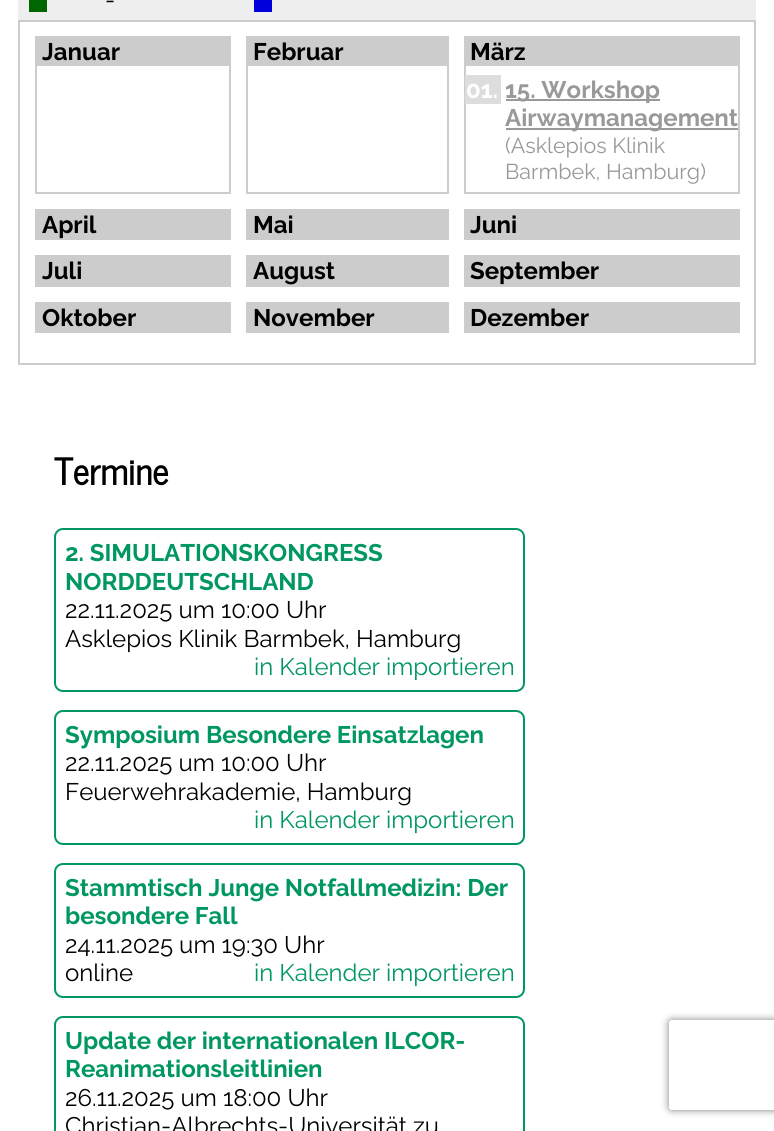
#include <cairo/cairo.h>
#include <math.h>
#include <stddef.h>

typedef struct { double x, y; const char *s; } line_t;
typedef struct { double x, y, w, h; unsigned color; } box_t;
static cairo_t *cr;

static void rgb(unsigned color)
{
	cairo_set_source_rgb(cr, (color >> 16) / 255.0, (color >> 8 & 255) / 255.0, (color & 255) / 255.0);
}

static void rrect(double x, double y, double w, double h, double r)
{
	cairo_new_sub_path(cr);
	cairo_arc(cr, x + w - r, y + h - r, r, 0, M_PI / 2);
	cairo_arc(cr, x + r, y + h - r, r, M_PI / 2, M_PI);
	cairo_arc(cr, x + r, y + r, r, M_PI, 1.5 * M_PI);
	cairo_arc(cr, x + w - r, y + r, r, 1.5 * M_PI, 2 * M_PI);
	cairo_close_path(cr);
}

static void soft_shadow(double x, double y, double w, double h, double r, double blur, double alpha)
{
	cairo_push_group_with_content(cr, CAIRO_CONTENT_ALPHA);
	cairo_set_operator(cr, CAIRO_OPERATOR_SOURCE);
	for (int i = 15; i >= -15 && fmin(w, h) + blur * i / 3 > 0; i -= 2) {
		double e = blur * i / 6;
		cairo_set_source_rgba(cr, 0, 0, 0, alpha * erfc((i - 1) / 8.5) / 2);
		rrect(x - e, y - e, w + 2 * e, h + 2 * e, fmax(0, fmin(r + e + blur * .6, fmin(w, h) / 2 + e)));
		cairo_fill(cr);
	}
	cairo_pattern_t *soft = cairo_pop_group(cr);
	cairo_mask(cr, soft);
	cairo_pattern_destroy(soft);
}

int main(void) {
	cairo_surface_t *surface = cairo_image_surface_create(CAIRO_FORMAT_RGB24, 774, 1131);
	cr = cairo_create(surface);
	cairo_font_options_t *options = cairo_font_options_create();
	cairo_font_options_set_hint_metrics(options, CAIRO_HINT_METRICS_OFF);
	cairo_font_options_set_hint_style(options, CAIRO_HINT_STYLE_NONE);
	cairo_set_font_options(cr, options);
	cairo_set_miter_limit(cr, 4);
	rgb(0xffffff);
	cairo_paint(cr);
	{
		static const box_t items[] = {
			{18, 0, 738, 20, 0xeeeeee},
			{29, 0, 18, 12, 0x006600},
			{254, 0, 18, 12, 0x0000dd},
		};
		for (size_t i = 0; i < sizeof items / sizeof *items; i++) {
			rgb(items[i].color);
			cairo_rectangle(cr, items[i].x, items[i].y, items[i].w, items[i].h);
			cairo_fill(cr);
		}
	}
	cairo_rectangle(cr, 19, 21, 736, 343);
	rgb(0xcccccc);
	cairo_stroke(cr);
	cairo_rectangle(cr, 36, 37, 194, 156);
	cairo_stroke(cr);
	cairo_rectangle(cr, 37, 38, 192, 28);
	cairo_fill(cr);
	cairo_rectangle(cr, 247, 37, 201, 156);
	cairo_stroke(cr);
	cairo_rectangle(cr, 248, 38, 199, 28);
	cairo_fill(cr);
	cairo_rectangle(cr, 465, 37, 274, 156);
	cairo_stroke(cr);
	{
		static const box_t items[] = {
			{466, 38, 272, 28, 0xcccccc},
			{465, 75, 36, 29, 0xdddddd},
			{506, 99, 154, 2, 0x999999},
			{506, 128, 232, 2, 0x999999},
		};
		for (size_t i = 0; i < sizeof items / sizeof *items; i++) {
			rgb(items[i].color);
			cairo_rectangle(cr, items[i].x, items[i].y, items[i].w, items[i].h);
			cairo_fill(cr);
		}
	}
	cairo_rectangle(cr, 36, 210, 194, 29);
	rgb(0xcccccc);
	cairo_stroke(cr);
	cairo_rectangle(cr, 37, 211, 192, 27);
	cairo_fill(cr);
	cairo_rectangle(cr, 247, 210, 201, 29);
	cairo_stroke(cr);
	cairo_rectangle(cr, 248, 211, 199, 27);
	cairo_fill(cr);
	cairo_rectangle(cr, 465, 210, 274, 29);
	cairo_stroke(cr);
	cairo_rectangle(cr, 466, 211, 272, 27);
	cairo_fill(cr);
	cairo_rectangle(cr, 36, 256, 194, 30);
	cairo_stroke(cr);
	cairo_rectangle(cr, 37, 257, 192, 28);
	cairo_fill(cr);
	cairo_rectangle(cr, 247, 256, 201, 30);
	cairo_stroke(cr);
	cairo_rectangle(cr, 248, 257, 199, 28);
	cairo_fill(cr);
	cairo_rectangle(cr, 465, 256, 274, 30);
	cairo_stroke(cr);
	cairo_rectangle(cr, 466, 257, 272, 28);
	cairo_fill(cr);
	cairo_rectangle(cr, 36, 303, 194, 29);
	cairo_stroke(cr);
	cairo_rectangle(cr, 37, 304, 192, 27);
	cairo_fill(cr);
	cairo_rectangle(cr, 247, 303, 201, 29);
	cairo_stroke(cr);
	cairo_rectangle(cr, 248, 304, 199, 27);
	cairo_fill(cr);
	cairo_rectangle(cr, 465, 303, 274, 29);
	cairo_stroke(cr);
	cairo_rectangle(cr, 466, 304, 272, 27);
	cairo_fill(cr);
	rrect(55, 529, 469, 162, 8);
	rgb(0x019760);
	cairo_stroke(cr);
	rrect(55, 711, 469, 133, 8);
	cairo_stroke(cr);
	rrect(55, 864, 469, 133, 8);
	cairo_stroke(cr);
	rrect(55, 1017, 469, 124, 8);
	cairo_stroke(cr);
	cairo_save(cr);
	cairo_set_fill_rule(cr, CAIRO_FILL_RULE_EVEN_ODD);
	cairo_new_path(cr);
	cairo_move_to(cr, 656, 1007);
	cairo_line_to(cr, 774, 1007);
	cairo_line_to(cr, 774, 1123);
	cairo_line_to(cr, 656, 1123);
	cairo_close_path(cr);
	cairo_move_to(cr, 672, 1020);
	cairo_line_to(cr, 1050, 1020);
	cairo_curve_to(cr, 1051.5, 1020, 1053, 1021.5, 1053, 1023);
	cairo_line_to(cr, 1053, 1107);
	cairo_curve_to(cr, 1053, 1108.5, 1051.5, 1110, 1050, 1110);
	cairo_line_to(cr, 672, 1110);
	cairo_curve_to(cr, 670.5, 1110, 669, 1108.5, 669, 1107);
	cairo_line_to(cr, 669, 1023);
	cairo_curve_to(cr, 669, 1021.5, 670.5, 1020, 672, 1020);
	cairo_close_path(cr);
	cairo_clip(cr);
	rgb(0x808080);
	soft_shadow(669, 1020, 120, 90, 3, 4, 1);
	cairo_restore(cr);
	cairo_select_font_face(cr, "Raleway", CAIRO_FONT_SLANT_NORMAL, CAIRO_FONT_WEIGHT_NORMAL);
	cairo_set_font_size(cr, 24);
	rgb(0x000000);
	cairo_move_to(cr, 105, 8);
	cairo_show_text(cr, "-");
	cairo_select_font_face(cr, "Raleway", CAIRO_FONT_SLANT_NORMAL, CAIRO_FONT_WEIGHT_BOLD);
	{
		static const line_t items[] = {
			{42, 60, "Januar"},
			{253, 60, "Februar"},
			{470, 60, "März"},
		};
		for (size_t i = 0; i < sizeof items / sizeof *items; i++) {
			cairo_move_to(cr, items[i].x, items[i].y);
			cairo_show_text(cr, items[i].s);
		}
	}
	rgb(0xffffff);
	cairo_move_to(cr, 466, 98);
	cairo_show_text(cr, "01.");
	rgb(0x999999);
	cairo_move_to(cr, 505, 98);
	cairo_show_text(cr, "15. Workshop");
	cairo_move_to(cr, 505, 126);
	cairo_show_text(cr, "Airwaymanagement");
	cairo_select_font_face(cr, "Raleway", CAIRO_FONT_SLANT_NORMAL, CAIRO_FONT_WEIGHT_NORMAL);
	cairo_set_font_size(cr, 21.5);
	cairo_move_to(cr, 505, 153);
	cairo_show_text(cr, "(Asklepios Klinik");
	cairo_move_to(cr, 505, 179);
	cairo_show_text(cr, "Barmbek, Hamburg)");
	cairo_select_font_face(cr, "Raleway", CAIRO_FONT_SLANT_NORMAL, CAIRO_FONT_WEIGHT_BOLD);
	cairo_set_font_size(cr, 24);
	rgb(0x000000);
	{
		static const line_t items[] = {
			{42, 233, "April"},
			{253, 233, "Mai"},
			{470, 233, "Juni"},
			{42, 279, "Juli"},
			{253, 279, "August"},
			{470, 279, "September"},
			{42, 326, "Oktober"},
			{253, 326, "November"},
			{470, 326, "Dezember"},
		};
		for (size_t i = 0; i < sizeof items / sizeof *items; i++) {
			cairo_move_to(cr, items[i].x, items[i].y);
			cairo_show_text(cr, items[i].s);
		}
	}
	cairo_select_font_face(cr, "News Cycle", CAIRO_FONT_SLANT_NORMAL, CAIRO_FONT_WEIGHT_BOLD);
	cairo_set_font_size(cr, 36);
	cairo_move_to(cr, 54, 485);
	cairo_show_text(cr, "Termine");
	cairo_select_font_face(cr, "Raleway", CAIRO_FONT_SLANT_NORMAL, CAIRO_FONT_WEIGHT_BOLD);
	cairo_set_font_size(cr, 24);
	rgb(0x019760);
	cairo_move_to(cr, 65, 561);
	cairo_show_text(cr, "2. SIMULATIONSKONGRESS");
	cairo_move_to(cr, 65, 590);
	cairo_show_text(cr, "NORDDEUTSCHLAND");
	cairo_select_font_face(cr, "Raleway", CAIRO_FONT_SLANT_NORMAL, CAIRO_FONT_WEIGHT_NORMAL);
	rgb(0x000000);
	cairo_move_to(cr, 65, 618);
	cairo_show_text(cr, "22.11.2025 um 10:00 Uhr");
	cairo_move_to(cr, 65, 647);
	cairo_show_text(cr, "Asklepios Klinik Barmbek, Hamburg");
	rgb(0x019760);
	cairo_move_to(cr, 254, 675);
	cairo_show_text(cr, "in Kalender importieren");
	cairo_select_font_face(cr, "Raleway", CAIRO_FONT_SLANT_NORMAL, CAIRO_FONT_WEIGHT_BOLD);
	cairo_move_to(cr, 65, 743);
	cairo_show_text(cr, "Symposium Besondere Einsatzlagen");
	cairo_select_font_face(cr, "Raleway", CAIRO_FONT_SLANT_NORMAL, CAIRO_FONT_WEIGHT_NORMAL);
	rgb(0x000000);
	cairo_move_to(cr, 65, 771);
	cairo_show_text(cr, "22.11.2025 um 10:00 Uhr");
	cairo_move_to(cr, 65, 800);
	cairo_show_text(cr, "Feuerwehrakademie, Hamburg");
	rgb(0x019760);
	cairo_move_to(cr, 254, 828);
	cairo_show_text(cr, "in Kalender importieren");
	cairo_select_font_face(cr, "Raleway", CAIRO_FONT_SLANT_NORMAL, CAIRO_FONT_WEIGHT_BOLD);
	cairo_move_to(cr, 65, 896);
	cairo_show_text(cr, "Stammtisch Junge Notfallmedizin: Der");
	cairo_move_to(cr, 65, 924);
	cairo_show_text(cr, "besondere Fall");
	cairo_select_font_face(cr, "Raleway", CAIRO_FONT_SLANT_NORMAL, CAIRO_FONT_WEIGHT_NORMAL);
	rgb(0x000000);
	cairo_move_to(cr, 65, 953);
	cairo_show_text(cr, "24.11.2025 um 19:30 Uhr");
	cairo_move_to(cr, 65, 981);
	cairo_show_text(cr, "online");
	rgb(0x019760);
	cairo_move_to(cr, 254, 981);
	cairo_show_text(cr, "in Kalender importieren");
	cairo_select_font_face(cr, "Raleway", CAIRO_FONT_SLANT_NORMAL, CAIRO_FONT_WEIGHT_BOLD);
	cairo_move_to(cr, 65, 1049);
	cairo_show_text(cr, "Update der internationalen ILCOR-");
	cairo_move_to(cr, 65, 1077);
	cairo_show_text(cr, "Reanimationsleitlinien");
	cairo_select_font_face(cr, "Raleway", CAIRO_FONT_SLANT_NORMAL, CAIRO_FONT_WEIGHT_NORMAL);
	rgb(0x000000);
	cairo_move_to(cr, 65, 1106);
	cairo_show_text(cr, "26.11.2025 um 18:00 Uhr");
	cairo_move_to(cr, 65, 1134);
	cairo_show_text(cr, "Christian-Albrechts-Universität zu");
	cairo_surface_write_to_png(surface, "page.png");
	cairo_font_options_destroy(options);
	cairo_destroy(cr);
	cairo_surface_destroy(surface);
	return 0;
}
